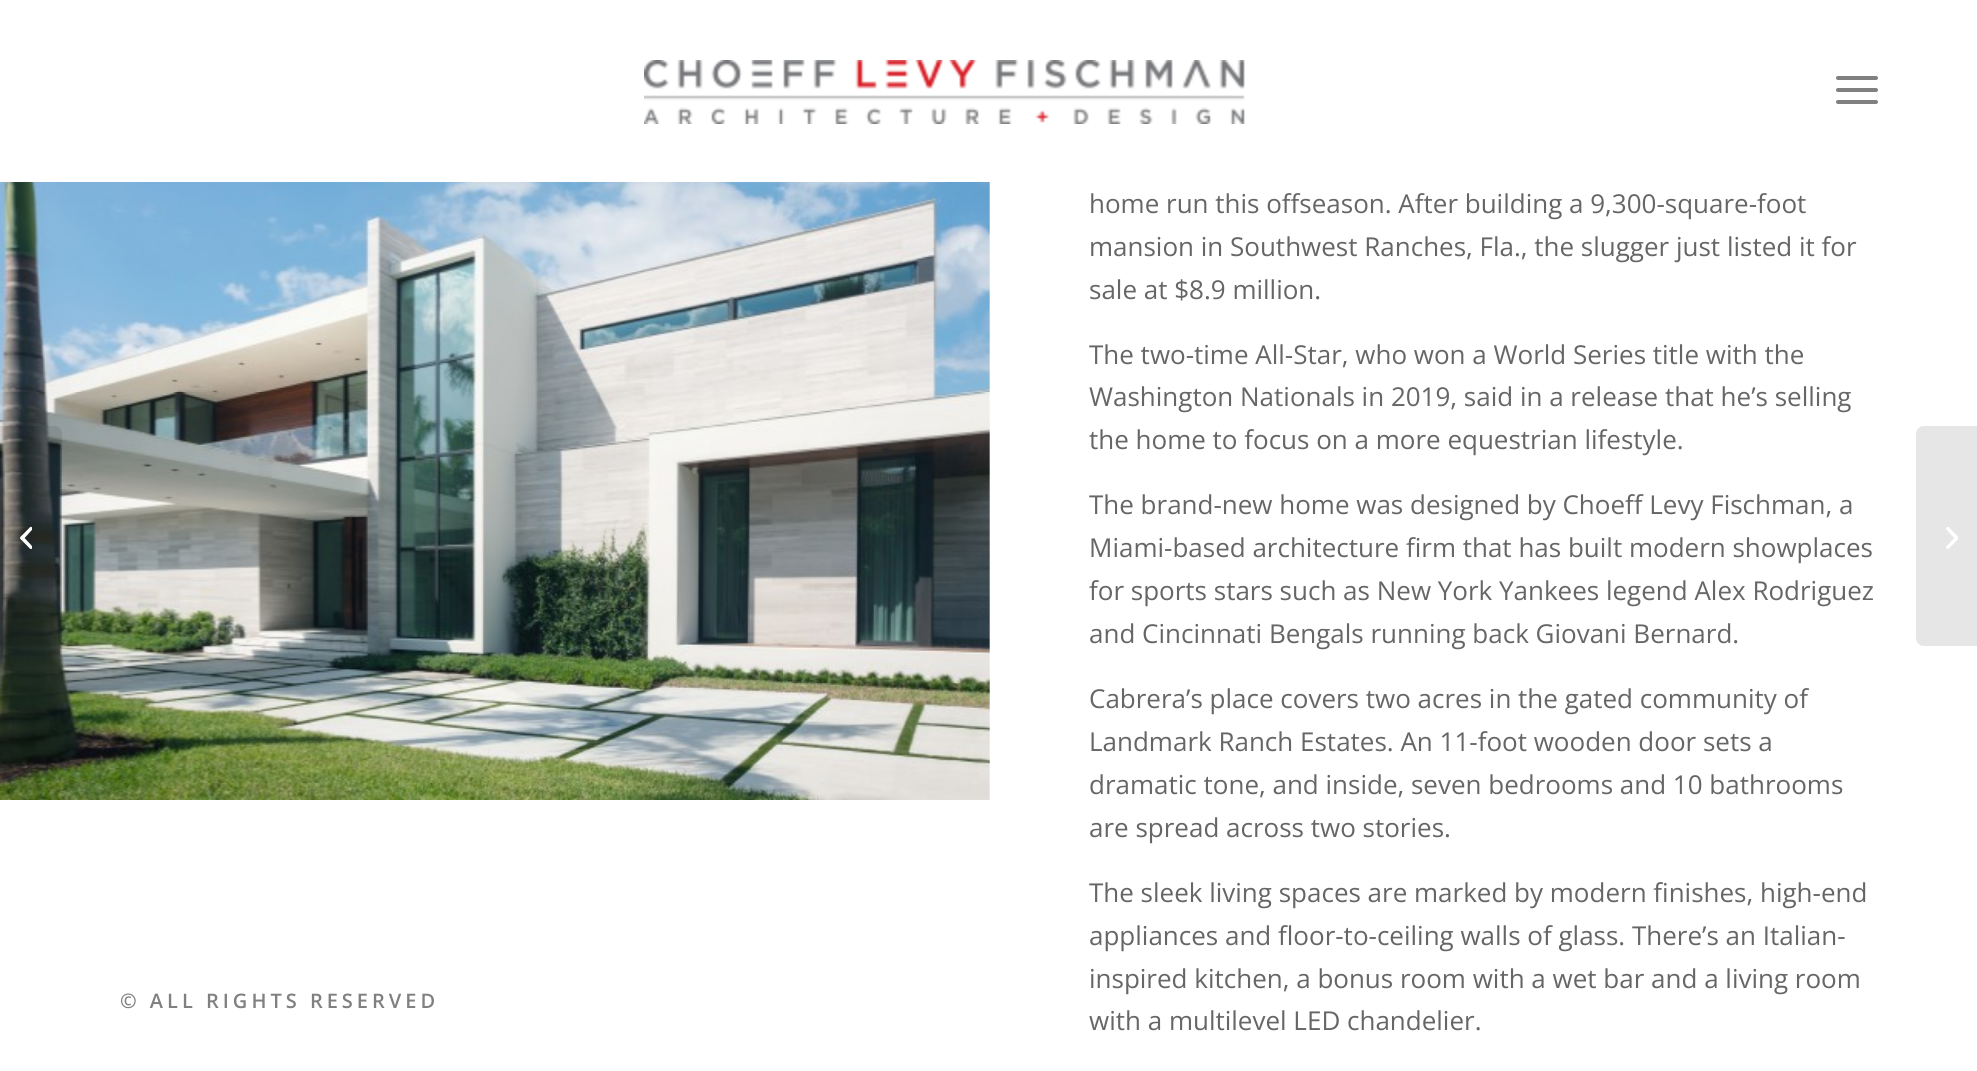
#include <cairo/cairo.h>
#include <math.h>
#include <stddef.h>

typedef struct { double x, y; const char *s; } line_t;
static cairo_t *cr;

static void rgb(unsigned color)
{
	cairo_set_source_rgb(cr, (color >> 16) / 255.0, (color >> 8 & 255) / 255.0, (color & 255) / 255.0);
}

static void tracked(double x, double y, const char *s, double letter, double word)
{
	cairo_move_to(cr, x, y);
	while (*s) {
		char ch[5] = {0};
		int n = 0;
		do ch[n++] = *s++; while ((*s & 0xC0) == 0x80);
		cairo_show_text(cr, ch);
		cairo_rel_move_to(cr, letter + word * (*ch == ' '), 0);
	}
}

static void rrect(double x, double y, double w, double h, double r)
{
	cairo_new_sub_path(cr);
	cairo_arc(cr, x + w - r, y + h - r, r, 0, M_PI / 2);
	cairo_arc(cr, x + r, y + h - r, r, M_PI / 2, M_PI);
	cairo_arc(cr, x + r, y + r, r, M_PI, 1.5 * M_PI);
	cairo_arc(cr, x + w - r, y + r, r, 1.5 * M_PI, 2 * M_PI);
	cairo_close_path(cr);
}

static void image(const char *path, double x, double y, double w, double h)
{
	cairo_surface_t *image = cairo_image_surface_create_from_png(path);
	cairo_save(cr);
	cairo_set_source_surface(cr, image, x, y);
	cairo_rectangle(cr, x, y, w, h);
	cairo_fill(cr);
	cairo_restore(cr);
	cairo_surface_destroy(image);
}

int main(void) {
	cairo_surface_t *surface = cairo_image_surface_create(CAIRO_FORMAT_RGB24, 1977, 1071);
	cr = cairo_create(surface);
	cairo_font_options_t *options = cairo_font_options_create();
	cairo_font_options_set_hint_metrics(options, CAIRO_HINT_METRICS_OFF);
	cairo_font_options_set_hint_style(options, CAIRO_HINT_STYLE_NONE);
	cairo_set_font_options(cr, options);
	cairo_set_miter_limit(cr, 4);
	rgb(0xffffff);
	cairo_paint(cr);
	image("img/2.png", 0, 182, 990, 618);
	cairo_set_source_rgba(cr, 0, 0, 0, 0.1);
	cairo_new_path(cr);
	cairo_move_to(cr, 0, 426);
	cairo_line_to(cr, 54, 426);
	cairo_curve_to(cr, 58.5, 426, 62, 429.5, 62, 434);
	cairo_line_to(cr, 62, 638);
	cairo_curve_to(cr, 62, 642.5, 58.5, 646, 54, 646);
	cairo_line_to(cr, 0, 646);
	cairo_close_path(cr);
	cairo_fill(cr);
	image("img/1.png", 20, 526, 12, 23);
	rgb(0xe6e6e6);
	cairo_new_path(cr);
	cairo_move_to(cr, 1924, 426);
	cairo_line_to(cr, 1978, 426);
	cairo_line_to(cr, 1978, 646);
	cairo_line_to(cr, 1924, 646);
	cairo_curve_to(cr, 1919.5, 646, 1916, 642.5, 1916, 638);
	cairo_line_to(cr, 1916, 434);
	cairo_curve_to(cr, 1916, 429.5, 1919.5, 426, 1924, 426);
	cairo_close_path(cr);
	cairo_fill(cr);
	image("img/3.png", 1946, 527, 12, 22);
	image("img/4.png", 644, 60, 601, 64);
	rgb(0x808080);
	rrect(1836, 88, 42, 4, 2);
	cairo_fill(cr);
	rrect(1836, 76, 42, 4, 2);
	cairo_fill(cr);
	rrect(1836, 100, 42, 4, 2);
	cairo_fill(cr);
	cairo_select_font_face(cr, "Open Sans", CAIRO_FONT_SLANT_NORMAL, CAIRO_FONT_WEIGHT_NORMAL);
	cairo_set_font_size(cr, 26);
	rgb(0x666666);
	{
		static const line_t items[] = {
			{1089, 213, "home run this offseason. After building a 9,300-square-foot"},
			{1089, 256, "mansion in Southwest Ranches, Fla., the slugger just listed it for"},
			{1089, 299, "sale at $8.9 million."},
			{1089, 364, "The two-time All-Star, who won a World Series title with the"},
			{1089, 406, "Washington Nationals in 2019, said in a release that he’s selling"},
			{1089, 449, "the home to focus on a more equestrian lifestyle."},
			{1089, 514, "The brand-new home was designed by Choeff Levy Fischman, a"},
			{1089, 557, "Miami-based architecture firm that has built modern showplaces"},
			{1089, 600, "for sports stars such as New York Yankees legend Alex Rodriguez"},
			{1089, 643, "and Cincinnati Bengals running back Giovani Bernard."},
			{1089, 708, "Cabrera’s place covers two acres in the gated community of"},
			{1089, 751, "Landmark Ranch Estates. An 11-foot wooden door sets a"},
			{1089, 794, "dramatic tone, and inside, seven bedrooms and 10 bathrooms"},
			{1089, 837, "are spread across two stories."},
			{1089, 902, "The sleek living spaces are marked by modern finishes, high-end"},
			{1089, 945, "appliances and floor-to-ceiling walls of glass. There’s an Italian-"},
			{1089, 988, "inspired kitchen, a bonus room with a wet bar and a living room"},
			{1089, 1030, "with a multilevel LED chandelier."},
		};
		for (size_t i = 0; i < sizeof items / sizeof *items; i++) {
			cairo_move_to(cr, items[i].x, items[i].y);
			cairo_show_text(cr, items[i].s);
		}
	}
	cairo_select_font_face(cr, "Open Sans SemiBold", CAIRO_FONT_SLANT_NORMAL, CAIRO_FONT_WEIGHT_NORMAL);
	cairo_set_font_size(cr, 20);
	rgb(0x808080);
	tracked(120, 1008, "© ALL RIGHTS RESERVED", 4, 0);
	cairo_surface_write_to_png(surface, "page.png");
	cairo_font_options_destroy(options);
	cairo_destroy(cr);
	cairo_surface_destroy(surface);
	return 0;
}
